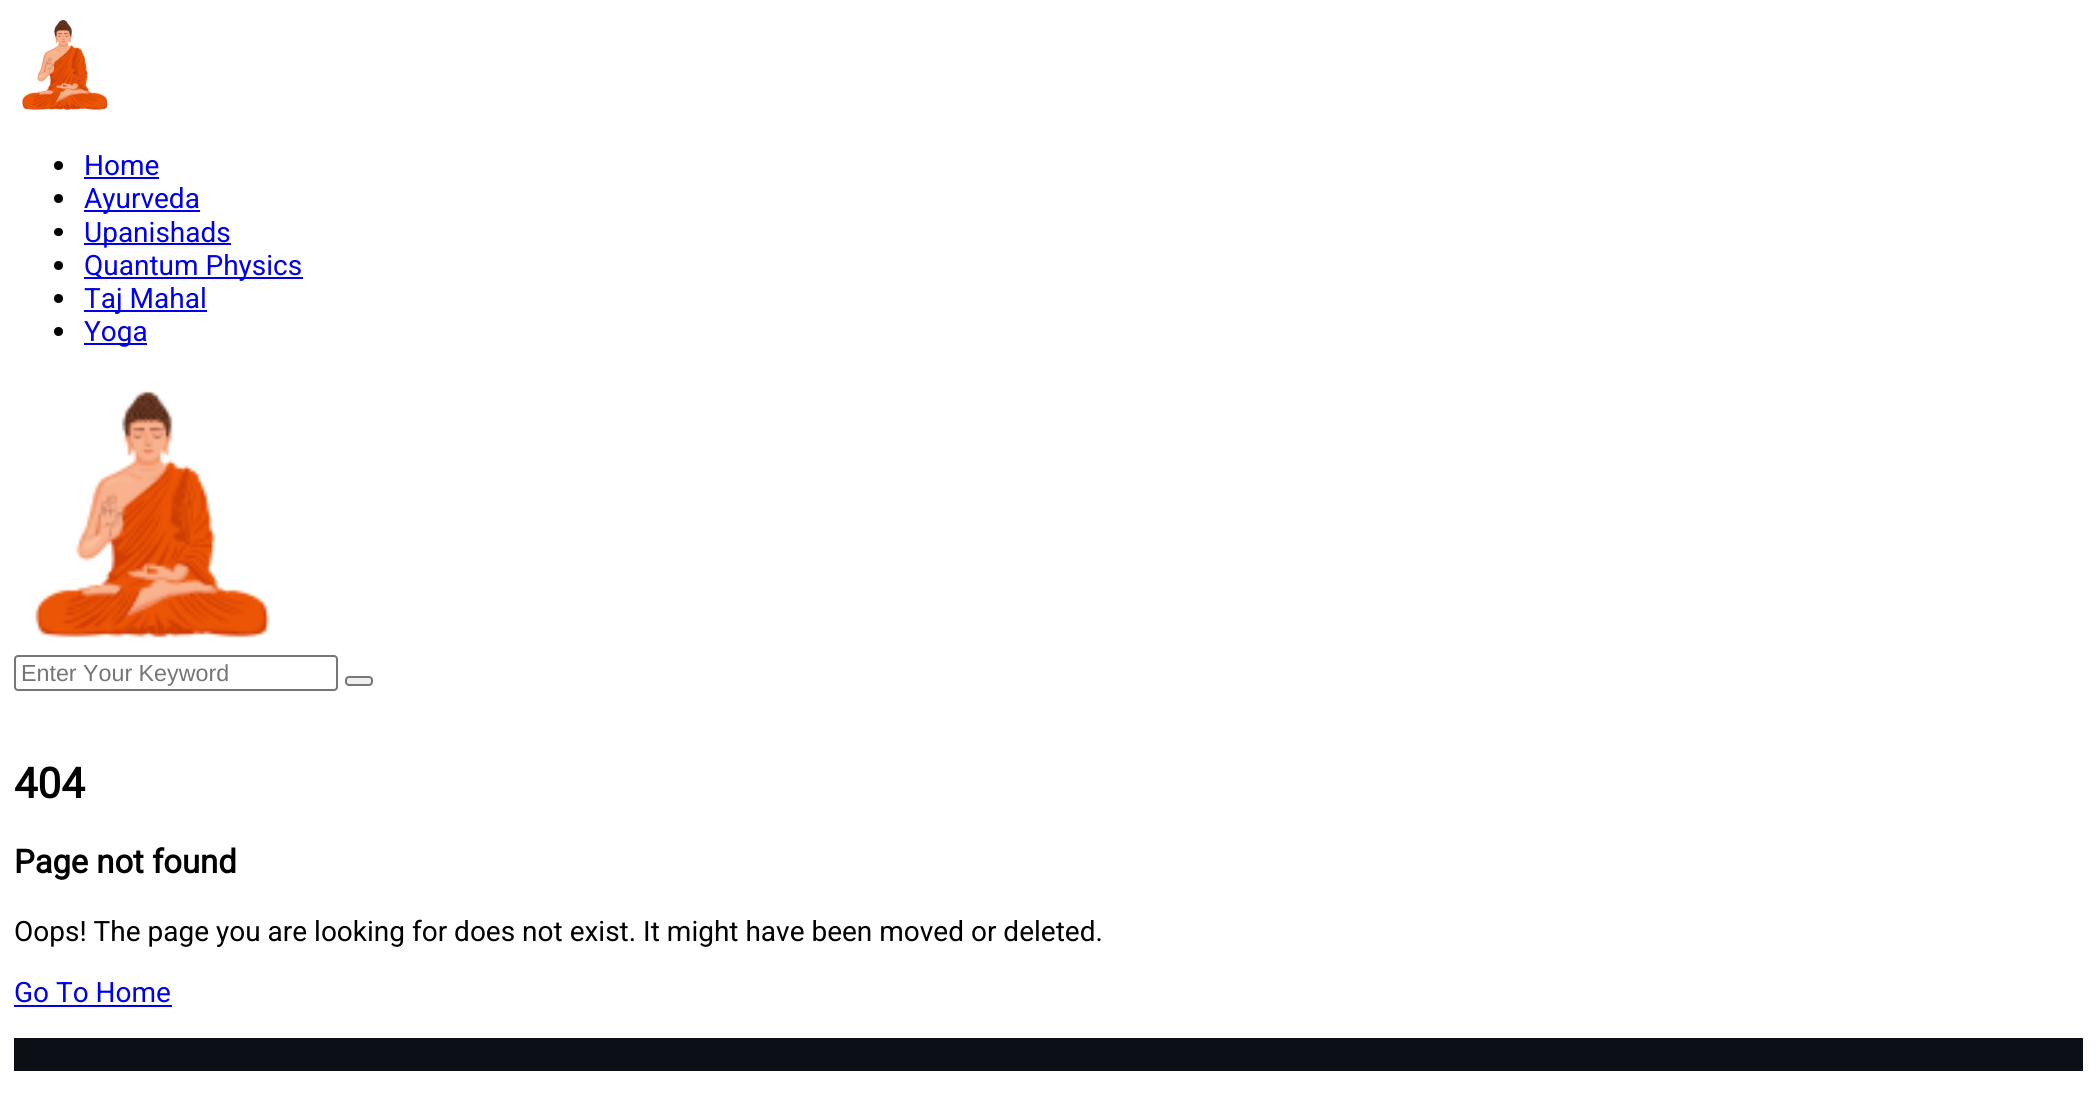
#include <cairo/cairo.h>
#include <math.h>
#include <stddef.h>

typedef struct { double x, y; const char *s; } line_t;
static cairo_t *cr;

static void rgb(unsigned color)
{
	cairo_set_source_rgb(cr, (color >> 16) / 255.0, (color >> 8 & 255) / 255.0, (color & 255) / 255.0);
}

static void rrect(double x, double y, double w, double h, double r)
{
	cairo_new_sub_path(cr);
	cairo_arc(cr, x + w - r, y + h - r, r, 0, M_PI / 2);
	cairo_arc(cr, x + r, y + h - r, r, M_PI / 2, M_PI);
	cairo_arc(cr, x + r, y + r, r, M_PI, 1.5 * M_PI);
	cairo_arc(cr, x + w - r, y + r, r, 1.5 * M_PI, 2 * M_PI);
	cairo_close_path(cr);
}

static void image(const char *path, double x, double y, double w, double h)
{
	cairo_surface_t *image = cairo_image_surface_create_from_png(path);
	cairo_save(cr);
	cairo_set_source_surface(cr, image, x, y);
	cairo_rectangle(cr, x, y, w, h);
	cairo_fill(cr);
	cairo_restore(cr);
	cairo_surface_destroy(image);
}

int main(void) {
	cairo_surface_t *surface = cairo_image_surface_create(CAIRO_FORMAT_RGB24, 2096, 1094);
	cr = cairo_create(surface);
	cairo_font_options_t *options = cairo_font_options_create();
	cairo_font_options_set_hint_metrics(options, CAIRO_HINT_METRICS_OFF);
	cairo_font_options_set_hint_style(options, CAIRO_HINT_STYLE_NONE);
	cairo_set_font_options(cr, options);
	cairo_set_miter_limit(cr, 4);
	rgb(0xffffff);
	cairo_paint(cr);
	image("img/1.png", 22, 19, 86, 91);
	rgb(0x000000);
	cairo_arc(cr, 58.5, 165.5, 4.5, 0, 2 * M_PI);
	cairo_fill(cr);
	rgb(0x0000ee);
	cairo_rectangle(cr, 84, 177, 75, 2);
	cairo_fill(cr);
	rgb(0x000000);
	cairo_arc(cr, 58.5, 198.5, 4.5, 0, 2 * M_PI);
	cairo_fill(cr);
	rgb(0x0000ee);
	cairo_rectangle(cr, 84, 210, 116, 2);
	cairo_fill(cr);
	rgb(0x000000);
	rrect(54, 228, 9, 8, 4);
	cairo_fill(cr);
	rgb(0x0000ee);
	cairo_rectangle(cr, 84, 243, 147, 2);
	cairo_fill(cr);
	rgb(0x000000);
	cairo_arc(cr, 58.5, 265.5, 4.5, 0, 2 * M_PI);
	cairo_fill(cr);
	rgb(0x0000ee);
	cairo_rectangle(cr, 84, 277, 219, 2);
	cairo_fill(cr);
	rgb(0x000000);
	cairo_arc(cr, 58.5, 298.5, 4.5, 0, 2 * M_PI);
	cairo_fill(cr);
	rgb(0x0000ee);
	cairo_rectangle(cr, 84, 310, 123, 2);
	cairo_fill(cr);
	rgb(0x000000);
	cairo_arc(cr, 58.5, 331.5, 4.5, 0, 2 * M_PI);
	cairo_fill(cr);
	rgb(0x0000ee);
	cairo_rectangle(cr, 84, 343, 63, 2);
	cairo_fill(cr);
	image("img/2.png", 35, 390, 235, 248);
	rrect(15, 656, 322, 34, 3);
	rgb(0x767676);
	cairo_stroke(cr);
	rgb(0xefefef);
	rrect(346, 677, 26, 8, 3);
	cairo_fill_preserve(cr);
	rgb(0x767676);
	cairo_stroke(cr);
	rgb(0x0000ee);
	cairo_rectangle(cr, 14, 1005, 158, 2);
	cairo_fill(cr);
	rgb(0x0c0f16);
	cairo_rectangle(cr, 14, 1038, 2069, 33);
	cairo_fill(cr);
	cairo_select_font_face(cr, "Roboto", CAIRO_FONT_SLANT_NORMAL, CAIRO_FONT_WEIGHT_NORMAL);
	cairo_set_font_size(cr, 28);
	rgb(0x0000ee);
	{
		static const line_t items[] = {
			{84, 175, "Home"},
			{84, 208, "Ayurveda"},
			{84, 242, "Upanishads"},
			{84, 275, "Quantum Physics"},
			{84, 308, "Taj Mahal"},
			{84, 341, "Yoga"},
		};
		for (size_t i = 0; i < sizeof items / sizeof *items; i++) {
			cairo_move_to(cr, items[i].x, items[i].y);
			cairo_show_text(cr, items[i].s);
		}
	}
	cairo_select_font_face(cr, "Liberation Sans", CAIRO_FONT_SLANT_NORMAL, CAIRO_FONT_WEIGHT_NORMAL);
	cairo_set_font_size(cr, 23.25);
	rgb(0x757575);
	cairo_move_to(cr, 21, 681);
	cairo_show_text(cr, "Enter Your Keyword");
	cairo_select_font_face(cr, "Roboto", CAIRO_FONT_SLANT_NORMAL, CAIRO_FONT_WEIGHT_BOLD);
	cairo_set_font_size(cr, 42);
	rgb(0x000000);
	cairo_move_to(cr, 14, 798);
	cairo_show_text(cr, "404");
	cairo_set_font_size(cr, 32.75);
	cairo_move_to(cr, 14, 873);
	cairo_show_text(cr, "Page not found");
	cairo_select_font_face(cr, "Roboto", CAIRO_FONT_SLANT_NORMAL, CAIRO_FONT_WEIGHT_NORMAL);
	cairo_set_font_size(cr, 28);
	cairo_move_to(cr, 14, 941);
	cairo_show_text(cr, "Oops! The page you are looking for does not exist. It might have been moved or deleted.");
	rgb(0x0000ee);
	cairo_move_to(cr, 14, 1002);
	cairo_show_text(cr, "Go To Home");
	cairo_surface_write_to_png(surface, "page.png");
	cairo_font_options_destroy(options);
	cairo_destroy(cr);
	cairo_surface_destroy(surface);
	return 0;
}
